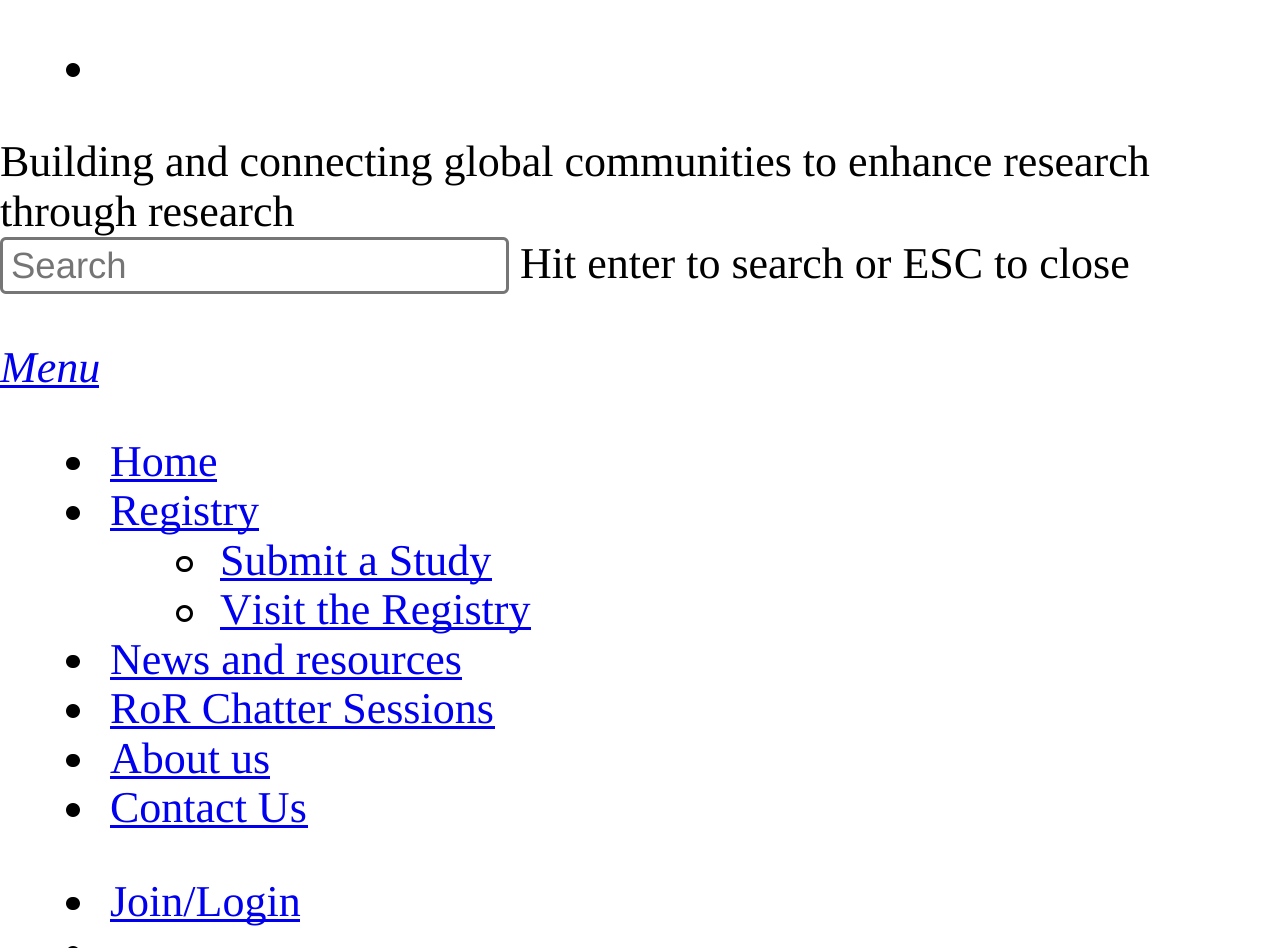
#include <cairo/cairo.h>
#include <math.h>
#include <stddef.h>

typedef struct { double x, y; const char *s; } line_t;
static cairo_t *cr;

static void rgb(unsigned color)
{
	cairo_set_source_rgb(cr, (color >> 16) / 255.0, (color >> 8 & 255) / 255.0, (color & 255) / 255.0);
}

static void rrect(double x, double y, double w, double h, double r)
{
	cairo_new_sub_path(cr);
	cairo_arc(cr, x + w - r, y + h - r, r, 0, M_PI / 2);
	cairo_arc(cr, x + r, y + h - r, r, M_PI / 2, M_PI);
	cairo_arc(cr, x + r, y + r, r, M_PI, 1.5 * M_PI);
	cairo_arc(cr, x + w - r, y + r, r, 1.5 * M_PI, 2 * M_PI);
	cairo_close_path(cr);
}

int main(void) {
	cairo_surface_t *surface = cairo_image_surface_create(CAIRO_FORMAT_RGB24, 1283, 948);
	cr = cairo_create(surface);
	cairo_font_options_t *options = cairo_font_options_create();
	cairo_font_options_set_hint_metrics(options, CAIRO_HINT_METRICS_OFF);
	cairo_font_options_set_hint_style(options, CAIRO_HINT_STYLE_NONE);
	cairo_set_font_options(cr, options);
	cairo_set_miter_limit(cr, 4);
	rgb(0xffffff);
	cairo_paint(cr);
	rgb(0x000000);
	cairo_arc(cr, 73, 70, 7, 0, 2 * M_PI);
	cairo_fill(cr);
	rrect(1.5, 238.5, 506, 54, 4.5);
	rgb(0x767676);
	cairo_set_line_width(cr, 3);
	cairo_stroke(cr);
	rgb(0x0000ee);
	cairo_rectangle(cr, 0, 385, 99, 3);
	cairo_fill(cr);
	rgb(0x000000);
	rrect(66, 457, 14, 13, 6.5);
	cairo_fill(cr);
	rgb(0x0000ee);
	cairo_rectangle(cr, 110, 479, 107, 3);
	cairo_fill(cr);
	rgb(0x000000);
	cairo_arc(cr, 73, 513, 7, 0, 2 * M_PI);
	cairo_fill(cr);
	rgb(0x0000ee);
	cairo_rectangle(cr, 110, 528, 149, 3);
	cairo_fill(cr);
	rrect(177.5, 557.5, 14, 13, 6.5);
	rgb(0x000000);
	cairo_stroke(cr);
	rgb(0x0000ee);
	cairo_rectangle(cr, 220, 578, 272, 3);
	cairo_fill(cr);
	cairo_arc(cr, 184.5, 613.5, 7, 0, 2 * M_PI);
	rgb(0x000000);
	cairo_stroke(cr);
	rgb(0x0000ee);
	cairo_rectangle(cr, 220, 627, 311, 3);
	cairo_fill(cr);
	rgb(0x000000);
	rrect(66, 655, 14, 13, 6.5);
	cairo_fill(cr);
	rgb(0x0000ee);
	cairo_rectangle(cr, 110, 677, 352, 3);
	cairo_fill(cr);
	rgb(0x000000);
	cairo_arc(cr, 73, 711, 7, 0, 2 * M_PI);
	cairo_fill(cr);
	rgb(0x0000ee);
	cairo_rectangle(cr, 110, 726, 385, 3);
	cairo_fill(cr);
	rgb(0x000000);
	rrect(66, 754, 14, 13, 6.5);
	cairo_fill(cr);
	rgb(0x0000ee);
	cairo_rectangle(cr, 110, 776, 160, 3);
	cairo_fill(cr);
	rgb(0x000000);
	cairo_arc(cr, 73, 810, 7, 0, 2 * M_PI);
	cairo_fill(cr);
	rgb(0x0000ee);
	cairo_rectangle(cr, 110, 825, 198, 3);
	cairo_fill(cr);
	rgb(0x000000);
	rrect(66, 897, 14, 13, 6.5);
	cairo_fill(cr);
	rgb(0x0000ee);
	cairo_rectangle(cr, 110, 919, 190, 3);
	cairo_fill(cr);
	rgb(0x000000);
	rrect(66, 946, 14, 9, 7);
	cairo_fill(cr);
	cairo_select_font_face(cr, "Liberation Serif", CAIRO_FONT_SLANT_NORMAL, CAIRO_FONT_WEIGHT_NORMAL);
	cairo_set_font_size(cr, 44);
	cairo_move_to(cr, 0, 176);
	cairo_show_text(cr, "Building and connecting global communities to enhance research");
	cairo_move_to(cr, 0, 226);
	cairo_show_text(cr, "through research");
	cairo_select_font_face(cr, "Liberation Sans", CAIRO_FONT_SLANT_NORMAL, CAIRO_FONT_WEIGHT_NORMAL);
	cairo_set_font_size(cr, 36.5);
	rgb(0x757575);
	cairo_move_to(cr, 11, 278);
	cairo_show_text(cr, "Search");
	cairo_select_font_face(cr, "Liberation Serif", CAIRO_FONT_SLANT_NORMAL, CAIRO_FONT_WEIGHT_NORMAL);
	cairo_set_font_size(cr, 44);
	rgb(0x000000);
	cairo_move_to(cr, 520, 278);
	cairo_show_text(cr, "Hit enter to search or ESC to close");
	cairo_select_font_face(cr, "Liberation Serif", CAIRO_FONT_SLANT_ITALIC, CAIRO_FONT_WEIGHT_NORMAL);
	rgb(0x0000ee);
	cairo_move_to(cr, 0, 382);
	cairo_show_text(cr, "Menu");
	cairo_select_font_face(cr, "Liberation Serif", CAIRO_FONT_SLANT_NORMAL, CAIRO_FONT_WEIGHT_NORMAL);
	{
		static const line_t items[] = {
			{110, 476, "Home"},
			{110, 525, "Registry"},
			{220, 575, "Submit a Study"},
			{220, 624, "Visit the Registry"},
			{110, 674, "News and resources"},
			{110, 723, "RoR Chatter Sessions"},
			{110, 773, "About us"},
			{110, 822, "Contact Us"},
			{110, 916, "Join/Login"},
		};
		for (size_t i = 0; i < sizeof items / sizeof *items; i++) {
			cairo_move_to(cr, items[i].x, items[i].y);
			cairo_show_text(cr, items[i].s);
		}
	}
	cairo_surface_write_to_png(surface, "page.png");
	cairo_font_options_destroy(options);
	cairo_destroy(cr);
	cairo_surface_destroy(surface);
	return 0;
}
